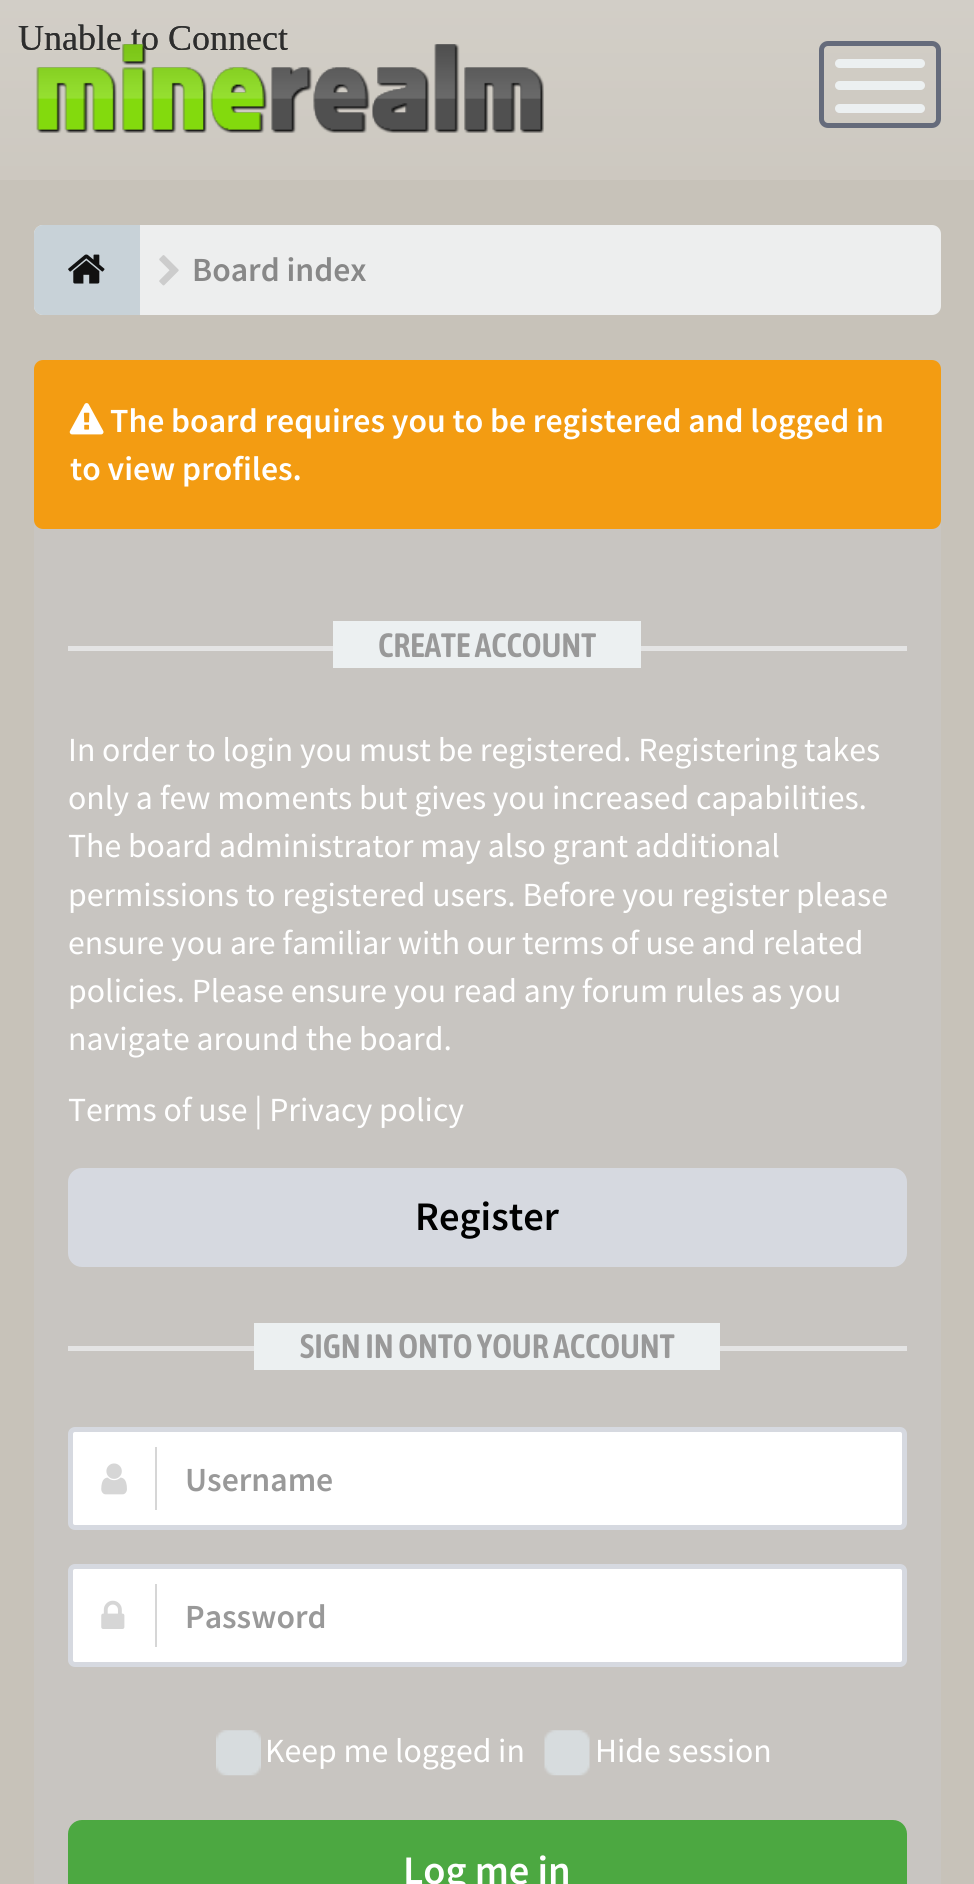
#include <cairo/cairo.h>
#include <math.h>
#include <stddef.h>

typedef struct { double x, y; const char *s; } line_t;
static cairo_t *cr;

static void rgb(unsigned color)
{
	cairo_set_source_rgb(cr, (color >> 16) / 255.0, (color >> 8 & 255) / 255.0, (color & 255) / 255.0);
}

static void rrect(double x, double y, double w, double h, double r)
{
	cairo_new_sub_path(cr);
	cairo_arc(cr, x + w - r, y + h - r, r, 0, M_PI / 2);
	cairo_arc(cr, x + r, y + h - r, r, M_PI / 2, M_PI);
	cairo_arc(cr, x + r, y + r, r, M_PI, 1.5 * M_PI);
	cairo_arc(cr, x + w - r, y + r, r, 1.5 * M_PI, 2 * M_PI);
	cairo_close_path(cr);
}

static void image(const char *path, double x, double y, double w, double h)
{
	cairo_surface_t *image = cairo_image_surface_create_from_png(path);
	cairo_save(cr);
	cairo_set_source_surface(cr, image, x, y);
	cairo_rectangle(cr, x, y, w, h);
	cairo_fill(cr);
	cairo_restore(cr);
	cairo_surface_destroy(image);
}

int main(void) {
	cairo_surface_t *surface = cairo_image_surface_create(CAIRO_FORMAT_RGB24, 974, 1884);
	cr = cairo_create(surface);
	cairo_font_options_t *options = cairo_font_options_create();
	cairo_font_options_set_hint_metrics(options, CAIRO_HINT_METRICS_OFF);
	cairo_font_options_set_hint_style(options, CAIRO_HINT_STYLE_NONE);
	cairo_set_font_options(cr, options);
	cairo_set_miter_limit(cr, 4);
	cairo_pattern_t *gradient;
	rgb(0xc7c2b9);
	cairo_paint(cr);
	image("img/2.png", 18, 24, 270, 26);
	image("img/3.png", 18, 24, 270, 26);
	gradient = cairo_pattern_create_linear(487, 180, 487, 0);
	cairo_pattern_add_color_stop_rgba(gradient, 0, 1, 1, 1, 0.1);
	cairo_pattern_add_color_stop_rgba(gradient, 1, 1, 1, 1, 0.2);
	cairo_set_source(cr, gradient);
	cairo_pattern_destroy(gradient);
	cairo_rectangle(cr, 0, 0, 974, 180);
	cairo_fill(cr);
	image("img/1.png", 36, 44, 508, 89);
	rrect(821.5, 43.5, 117, 82, 6.5);
	rgb(0x656b7b);
	cairo_set_line_width(cr, 5);
	cairo_stroke(cr);
	rgb(0xecf0f1);
	rrect(835, 81, 90, 9, 4.5);
	cairo_fill(cr);
	rrect(835, 59, 90, 9, 4.5);
	cairo_fill(cr);
	rrect(835, 104, 90, 9, 4.5);
	cairo_fill(cr);
	rgb(0xedeeee);
	rrect(34, 225, 907, 90, 9);
	cairo_fill(cr);
	rgb(0xc8d2d8);
	cairo_new_path(cr);
	cairo_move_to(cr, 43, 225);
	cairo_line_to(cr, 140, 225);
	cairo_line_to(cr, 140, 315);
	cairo_line_to(cr, 43, 315);
	cairo_curve_to(cr, 38, 315, 34, 311, 34, 306);
	cairo_line_to(cr, 34, 234);
	cairo_curve_to(cr, 34, 229, 38, 225, 43, 225);
	cairo_close_path(cr);
	cairo_fill(cr);
	image("img/4.png", 68, 254, 37, 30);
	image("img/5.png", 159, 255, 20, 31);
	rgb(0xc8c5c1);
	rrect(34, 360, 907, 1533, 9);
	cairo_fill(cr);
	rgb(0xf39c12);
	rrect(35, 361, 905, 167, 8);
	cairo_fill_preserve(cr);
	cairo_set_line_width(cr, 2);
	cairo_stroke(cr);
	image("img/6.png", 69, 403, 35, 32);
	rgb(0xe4e4e4);
	cairo_rectangle(cr, 68, 646, 839, 5);
	cairo_fill(cr);
	rgb(0xecf0f1);
	cairo_rectangle(cr, 333, 621, 308, 47);
	cairo_fill(cr);
	rgb(0xd6d9e0);
	rrect(68, 1168, 839, 99, 14);
	cairo_fill(cr);
	rgb(0xe4e4e4);
	cairo_rectangle(cr, 68, 1346, 839, 5);
	cairo_fill(cr);
	rgb(0xecf0f1);
	cairo_rectangle(cr, 254, 1323, 466, 47);
	cairo_fill(cr);
	rgb(0xffffff);
	rrect(70.5, 1429.5, 834, 98, 4.5);
	cairo_fill_preserve(cr);
	rgb(0xd6d9e0);
	cairo_set_line_width(cr, 5);
	cairo_stroke(cr);
	rgb(0xd6d6d6);
	cairo_rectangle(cr, 155, 1447, 2, 63);
	cairo_fill(cr);
	image("img/7.png", 101, 1463, 26, 32);
	rgb(0xffffff);
	rrect(70.5, 1566.5, 834, 98, 4.5);
	cairo_fill_preserve(cr);
	rgb(0xd6d9e0);
	cairo_stroke(cr);
	rgb(0xd6d6d6);
	cairo_rectangle(cr, 155, 1584, 2, 63);
	cairo_fill(cr);
	image("img/8.png", 101, 1600, 24, 29);
	image("img/9.png", 216, 1730, 45, 46);
	image("img/10.png", 544, 1730, 46, 46);
	rgb(0x4ca841);
	rrect(68, 1820, 839, 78, 14);
	cairo_fill(cr);
	cairo_select_font_face(cr, "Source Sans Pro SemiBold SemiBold", CAIRO_FONT_SLANT_NORMAL, CAIRO_FONT_WEIGHT_NORMAL);
	cairo_set_font_size(cr, 33.75);
	rgb(0x888888);
	cairo_move_to(cr, 192, 281);
	cairo_show_text(cr, "Board index");
	rgb(0xffffff);
	cairo_move_to(cr, 110, 432);
	cairo_show_text(cr, "The board requires you to be registered and logged in");
	cairo_move_to(cr, 70, 480);
	cairo_show_text(cr, "to view profiles.");
	cairo_select_font_face(cr, "Asap Condensed SemiBold", CAIRO_FONT_SLANT_NORMAL, CAIRO_FONT_WEIGHT_NORMAL);
	rgb(0x999999);
	cairo_move_to(cr, 378, 657);
	cairo_show_text(cr, "CREATE ACCOUNT");
	cairo_select_font_face(cr, "Source Sans Pro", CAIRO_FONT_SLANT_NORMAL, CAIRO_FONT_WEIGHT_NORMAL);
	rgb(0xffffff);
	{
		static const line_t items[] = {
			{68, 761, "In order to login you must be registered. Registering takes"},
			{68, 809, "only a few moments but gives you increased capabilities."},
			{68, 857, "The board administrator may also grant additional"},
			{68, 906, "permissions to registered users. Before you register please"},
			{68, 954, "ensure you are familiar with our terms of use and related"},
			{68, 1002, "policies. Please ensure you read any forum rules as you"},
			{68, 1050, "navigate around the board."},
			{68, 1121, "Terms of use | Privacy policy"},
		};
		for (size_t i = 0; i < sizeof items / sizeof *items; i++) {
			cairo_move_to(cr, items[i].x, items[i].y);
			cairo_show_text(cr, items[i].s);
		}
	}
	cairo_select_font_face(cr, "Source Sans Pro SemiBold SemiBold", CAIRO_FONT_SLANT_NORMAL, CAIRO_FONT_WEIGHT_NORMAL);
	cairo_set_font_size(cr, 40.5);
	rgb(0x000000);
	cairo_move_to(cr, 415, 1230);
	cairo_show_text(cr, "Register");
	cairo_select_font_face(cr, "Asap Condensed SemiBold", CAIRO_FONT_SLANT_NORMAL, CAIRO_FONT_WEIGHT_NORMAL);
	cairo_set_font_size(cr, 33.75);
	rgb(0x999999);
	cairo_move_to(cr, 300, 1358);
	cairo_show_text(cr, "SIGN IN ONTO YOUR ACCOUNT");
	cairo_select_font_face(cr, "Source Sans Pro SemiBold SemiBold", CAIRO_FONT_SLANT_NORMAL, CAIRO_FONT_WEIGHT_NORMAL);
	cairo_move_to(cr, 185, 1491);
	cairo_show_text(cr, "Username");
	cairo_move_to(cr, 185, 1628);
	cairo_show_text(cr, "Password");
	cairo_select_font_face(cr, "Source Sans Pro", CAIRO_FONT_SLANT_NORMAL, CAIRO_FONT_WEIGHT_NORMAL);
	rgb(0xffffff);
	cairo_move_to(cr, 265, 1762);
	cairo_show_text(cr, "Keep me logged in");
	cairo_move_to(cr, 595, 1762);
	cairo_show_text(cr, "Hide session");
	cairo_select_font_face(cr, "Source Sans Pro SemiBold SemiBold", CAIRO_FONT_SLANT_NORMAL, CAIRO_FONT_WEIGHT_NORMAL);
	cairo_set_font_size(cr, 40.5);
	cairo_move_to(cr, 403, 1884);
	cairo_show_text(cr, "Log me in");
	cairo_surface_write_to_png(surface, "page.png");
	cairo_font_options_destroy(options);
	cairo_destroy(cr);
	cairo_surface_destroy(surface);
	return 0;
}
